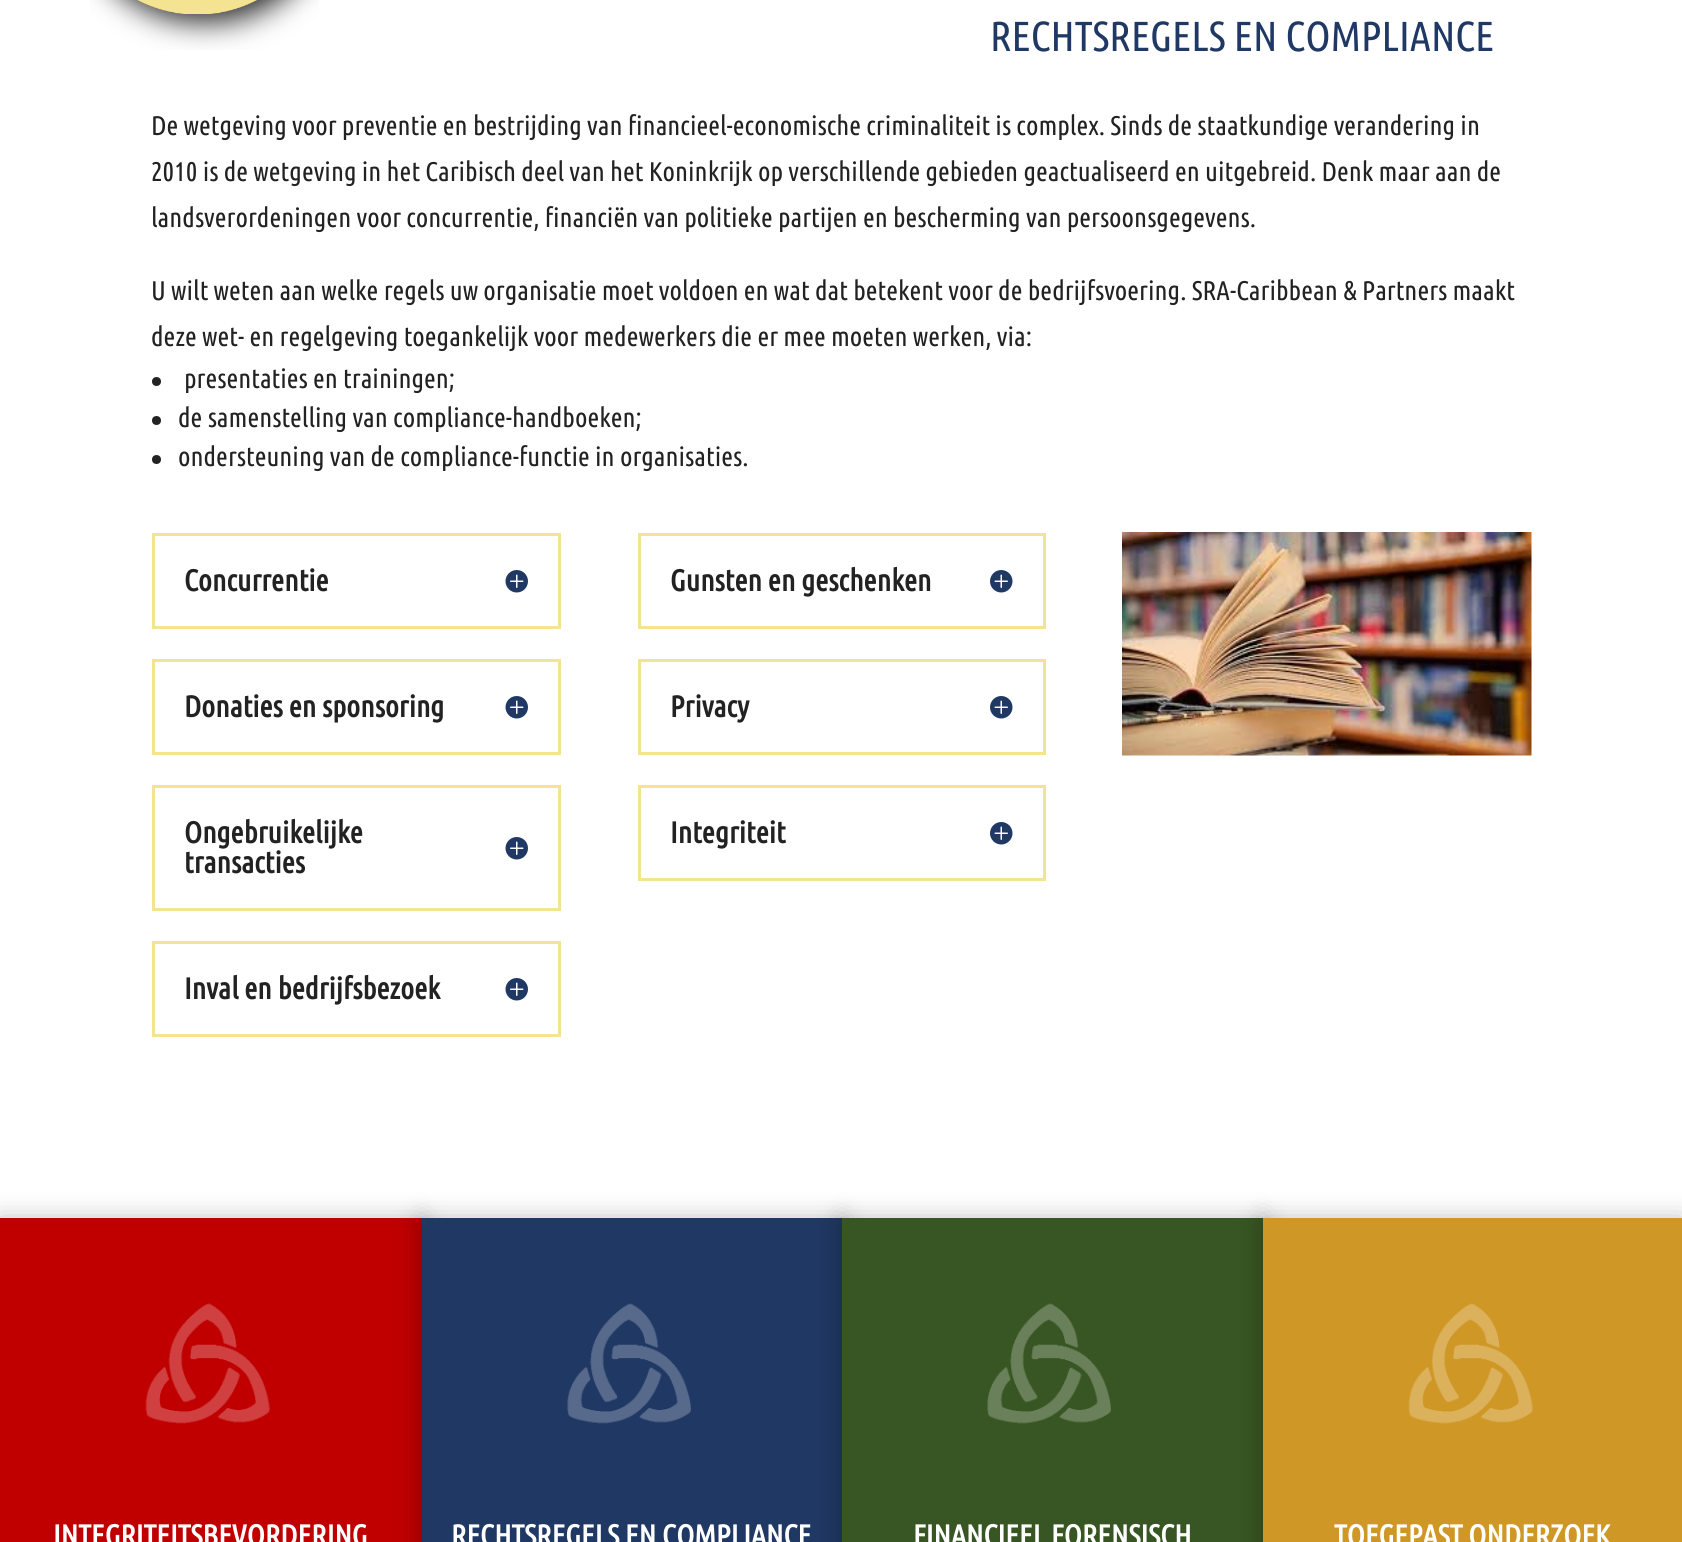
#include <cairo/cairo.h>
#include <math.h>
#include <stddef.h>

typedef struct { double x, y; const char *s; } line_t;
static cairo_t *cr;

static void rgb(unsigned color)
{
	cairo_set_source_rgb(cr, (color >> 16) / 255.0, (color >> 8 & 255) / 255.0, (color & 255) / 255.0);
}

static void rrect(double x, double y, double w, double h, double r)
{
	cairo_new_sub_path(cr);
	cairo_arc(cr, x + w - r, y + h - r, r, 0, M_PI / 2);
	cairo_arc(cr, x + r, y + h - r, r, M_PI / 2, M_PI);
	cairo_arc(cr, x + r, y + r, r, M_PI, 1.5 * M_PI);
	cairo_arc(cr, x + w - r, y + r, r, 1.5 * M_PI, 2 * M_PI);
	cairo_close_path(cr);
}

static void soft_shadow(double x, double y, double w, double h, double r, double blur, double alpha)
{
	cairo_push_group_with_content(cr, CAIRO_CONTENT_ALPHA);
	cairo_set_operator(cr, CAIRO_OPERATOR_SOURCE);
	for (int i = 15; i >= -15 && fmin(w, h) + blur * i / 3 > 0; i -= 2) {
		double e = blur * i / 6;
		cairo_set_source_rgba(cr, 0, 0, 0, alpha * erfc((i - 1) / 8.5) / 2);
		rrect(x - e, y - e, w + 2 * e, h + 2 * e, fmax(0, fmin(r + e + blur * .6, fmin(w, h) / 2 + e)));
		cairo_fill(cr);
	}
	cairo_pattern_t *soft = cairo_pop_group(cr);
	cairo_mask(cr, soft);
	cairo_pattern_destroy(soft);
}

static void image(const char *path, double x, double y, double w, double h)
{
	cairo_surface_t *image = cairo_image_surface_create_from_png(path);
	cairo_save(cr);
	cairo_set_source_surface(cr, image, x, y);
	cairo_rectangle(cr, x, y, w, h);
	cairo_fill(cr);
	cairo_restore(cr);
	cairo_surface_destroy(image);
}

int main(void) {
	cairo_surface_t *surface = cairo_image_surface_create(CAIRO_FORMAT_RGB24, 1682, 1542);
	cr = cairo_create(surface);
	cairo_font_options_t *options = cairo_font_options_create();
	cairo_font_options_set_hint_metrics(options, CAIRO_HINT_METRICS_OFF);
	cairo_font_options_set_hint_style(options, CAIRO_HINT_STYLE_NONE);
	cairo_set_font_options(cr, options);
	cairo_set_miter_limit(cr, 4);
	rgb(0xffffff);
	cairo_paint(cr);
	image("img/1.png", 90, 0, 229, 50);
	rgb(0x222222);
	cairo_arc(cr, 156.5, 381.5, 4.5, 0, 2 * M_PI);
	cairo_fill(cr);
	cairo_arc(cr, 156.5, 420.5, 4.5, 0, 2 * M_PI);
	cairo_fill(cr);
	cairo_arc(cr, 156.5, 459.5, 4.5, 0, 2 * M_PI);
	cairo_fill(cr);
	cairo_rectangle(cr, 153.5, 534.5, 406, 93);
	rgb(0xf4e391);
	cairo_set_line_width(cr, 3);
	cairo_stroke(cr);
	image("img/2.png", 505, 570, 23, 23);
	cairo_rectangle(cr, 153.5, 660.5, 406, 93);
	cairo_stroke(cr);
	image("img/2.png", 505, 696, 23, 23);
	cairo_rectangle(cr, 153.5, 786.5, 406, 123);
	cairo_stroke(cr);
	image("img/2.png", 505, 837, 23, 23);
	cairo_rectangle(cr, 153.5, 942.5, 406, 93);
	cairo_stroke(cr);
	image("img/2.png", 505, 978, 23, 23);
	cairo_rectangle(cr, 639.5, 534.5, 405, 93);
	cairo_stroke(cr);
	image("img/3.png", 990, 570, 23, 23);
	cairo_rectangle(cr, 639.5, 660.5, 405, 93);
	cairo_stroke(cr);
	image("img/3.png", 990, 696, 23, 23);
	cairo_rectangle(cr, 639.5, 786.5, 405, 93);
	cairo_stroke(cr);
	image("img/3.png", 990, 822, 23, 23);
	image("img/4.png", 1122, 532, 410, 224);
	rgb(0x000000);
	soft_shadow(0, 1221, 422, 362, 0, 13.5, 0.3);
	rgb(0xc00000);
	cairo_rectangle(cr, 0, 1218, 422, 324);
	cairo_fill(cr);
	image("img/5.png", 145, 1303, 125, 121);
	rgb(0x000000);
	soft_shadow(422, 1221, 420, 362, 0, 13.5, 0.3);
	rgb(0x203864);
	cairo_rectangle(cr, 422, 1218, 420, 324);
	cairo_fill(cr);
	image("img/6.png", 567, 1303, 124, 121);
	rgb(0x000000);
	soft_shadow(842, 1221, 421, 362, 0, 13.5, 0.3);
	rgb(0x385623);
	cairo_rectangle(cr, 842, 1218, 421, 324);
	cairo_fill(cr);
	image("img/7.png", 987, 1303, 124, 121);
	rgb(0x000000);
	soft_shadow(1263, 1221, 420, 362, 0, 13.5, 0.3);
	rgb(0xcf9725);
	cairo_rectangle(cr, 1263, 1218, 419, 324);
	cairo_fill(cr);
	image("img/8.png", 1408, 1303, 125, 121);
	cairo_select_font_face(cr, "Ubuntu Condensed", CAIRO_FONT_SLANT_NORMAL, CAIRO_FONT_WEIGHT_NORMAL);
	cairo_set_font_size(cr, 42);
	rgb(0x203864);
	cairo_move_to(cr, 990, 51);
	cairo_show_text(cr, "RECHTSREGELS EN COMPLIANCE");
	cairo_set_font_size(cr, 27);
	rgb(0x222222);
	{
		static const line_t items[] = {
			{151, 135, "De wetgeving voor preventie en bestrijding van financieel-economische criminaliteit is complex. Sinds de staatkundige verandering in"},
			{151, 181, "2010 is de wetgeving in het Caribisch deel van het Koninkrijk op verschillende gebieden geactualiseerd en uitgebreid. Denk maar aan de"},
			{151, 227, "landsverordeningen voor concurrentie, financiën van politieke partijen en bescherming van persoonsgegevens."},
			{151, 300, "U wilt weten aan welke regels uw organisatie moet voldoen en wat dat betekent voor de bedrijfsvoering. SRA-Caribbean & Partners maakt"},
			{151, 346, "deze wet- en regelgeving toegankelijk voor medewerkers die er mee moeten werken, via:"},
			{184, 388, "presentaties en trainingen;"},
			{178, 427, "de samenstelling van compliance-handboeken;"},
			{178, 466, "ondersteuning van de compliance-functie in organisaties."},
		};
		for (size_t i = 0; i < sizeof items / sizeof *items; i++) {
			cairo_move_to(cr, items[i].x, items[i].y);
			cairo_show_text(cr, items[i].s);
		}
	}
	cairo_select_font_face(cr, "Ubuntu Condensed", CAIRO_FONT_SLANT_NORMAL, CAIRO_FONT_WEIGHT_BOLD);
	cairo_set_font_size(cr, 30);
	{
		static const line_t items[] = {
			{184, 591, "Concurrentie"},
			{184, 717, "Donaties en sponsoring"},
			{184, 843, "Ongebruikelijke"},
			{184, 873, "transacties"},
			{184, 999, "Inval en bedrijfsbezoek"},
			{670, 591, "Gunsten en geschenken"},
			{670, 717, "Privacy"},
			{670, 843, "Integriteit"},
		};
		for (size_t i = 0; i < sizeof items / sizeof *items; i++) {
			cairo_move_to(cr, items[i].x, items[i].y);
			cairo_show_text(cr, items[i].s);
		}
	}
	rgb(0xffffff);
	{
		static const line_t items[] = {
			{53, 1546, "INTEGRITEITSBEVORDERING"},
			{451, 1546, "RECHTSREGELS EN COMPLIANCE"},
			{913, 1546, "FINANCIEEL FORENSISCH"},
			{1334, 1546, "TOEGEPAST ONDERZOEK"},
		};
		for (size_t i = 0; i < sizeof items / sizeof *items; i++) {
			cairo_move_to(cr, items[i].x, items[i].y);
			cairo_show_text(cr, items[i].s);
		}
	}
	cairo_surface_write_to_png(surface, "page.png");
	cairo_font_options_destroy(options);
	cairo_destroy(cr);
	cairo_surface_destroy(surface);
	return 0;
}
